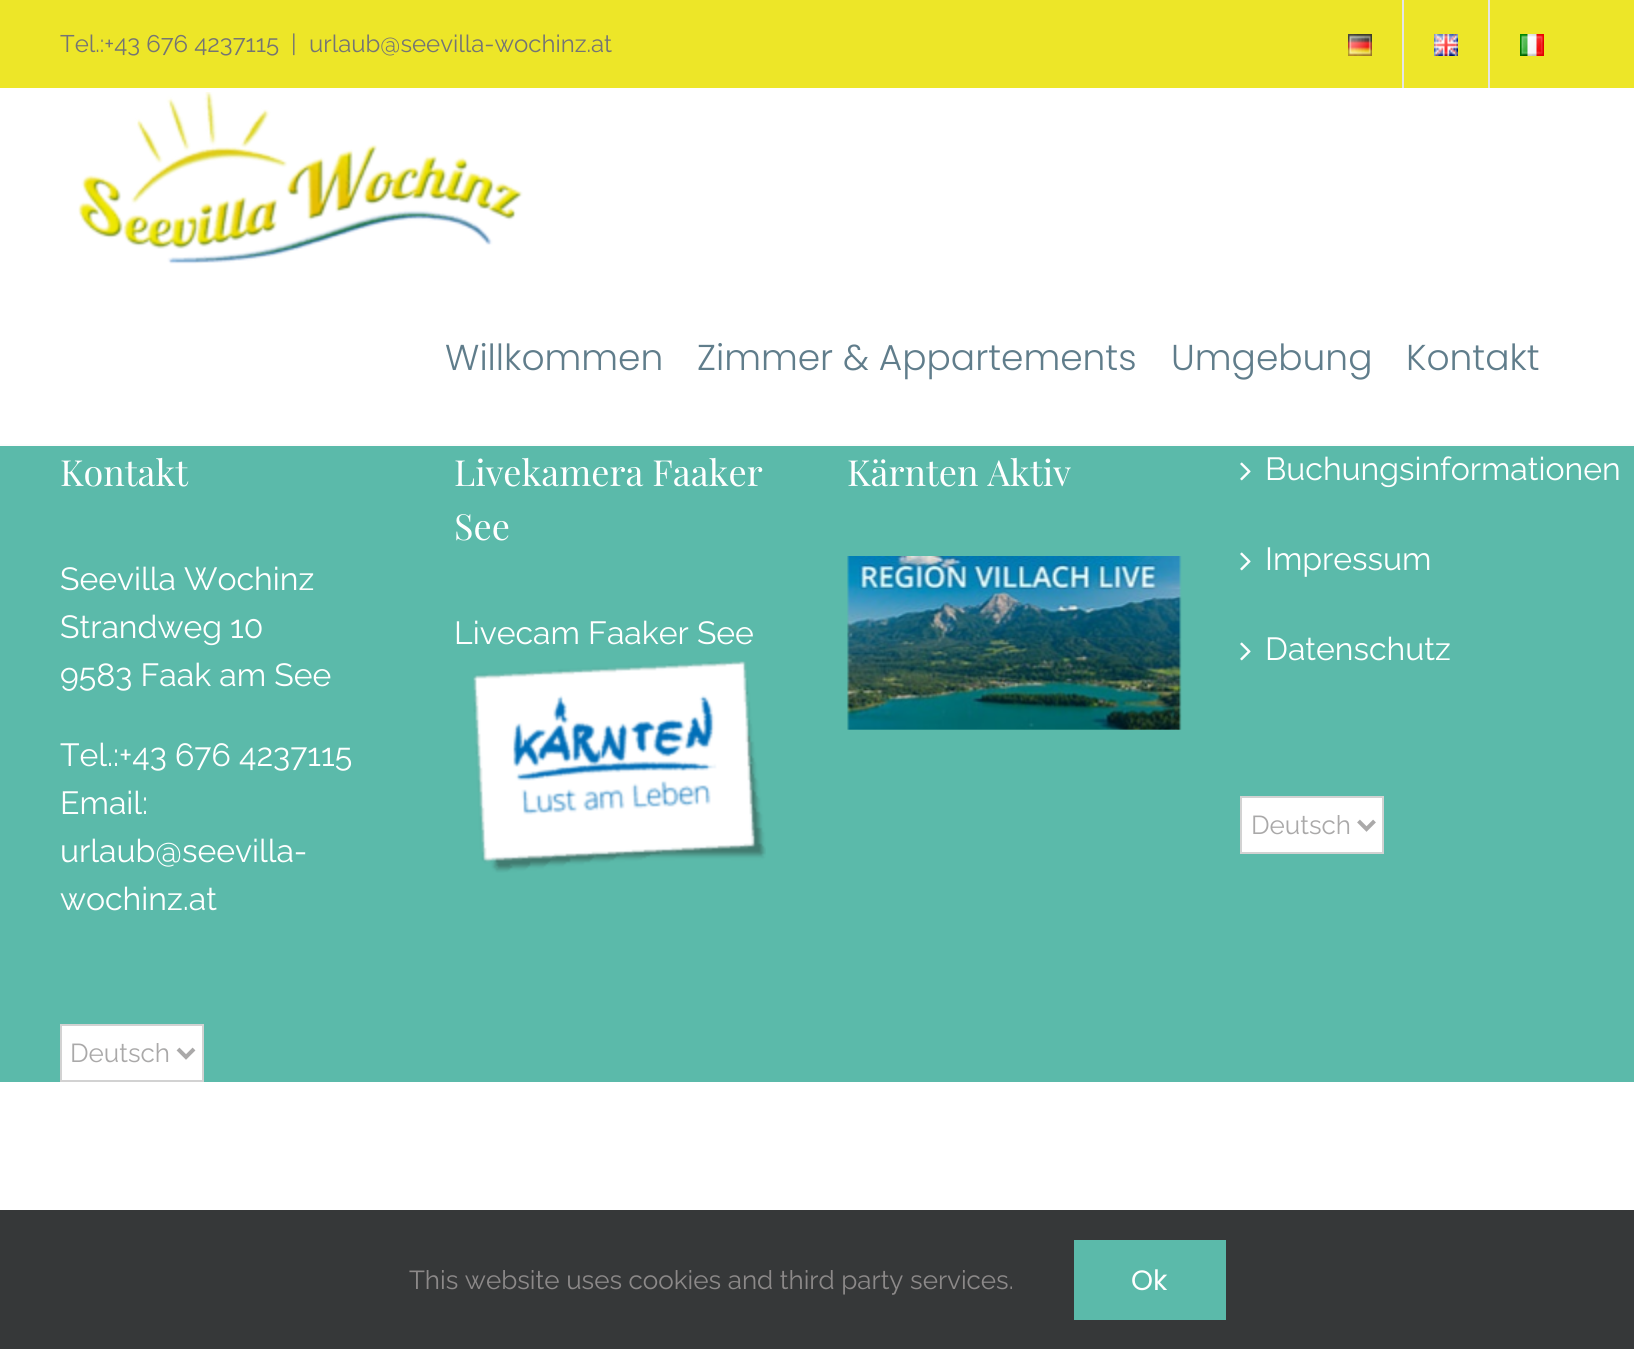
#include <cairo/cairo.h>
#include <math.h>
#include <stddef.h>

typedef struct { double x, y; const char *s; } line_t;
static cairo_t *cr;

static void rgb(unsigned color)
{
	cairo_set_source_rgb(cr, (color >> 16) / 255.0, (color >> 8 & 255) / 255.0, (color & 255) / 255.0);
}

static void image(const char *path, double x, double y, double w, double h)
{
	cairo_surface_t *image = cairo_image_surface_create_from_png(path);
	cairo_save(cr);
	cairo_set_source_surface(cr, image, x, y);
	cairo_rectangle(cr, x, y, w, h);
	cairo_fill(cr);
	cairo_restore(cr);
	cairo_surface_destroy(image);
}

int main(void) {
	cairo_surface_t *surface = cairo_image_surface_create(CAIRO_FORMAT_RGB24, 1634, 1349);
	cr = cairo_create(surface);
	cairo_font_options_t *options = cairo_font_options_create();
	cairo_font_options_set_hint_metrics(options, CAIRO_HINT_METRICS_OFF);
	cairo_font_options_set_hint_style(options, CAIRO_HINT_STYLE_NONE);
	cairo_set_font_options(cr, options);
	cairo_set_miter_limit(cr, 4);
	rgb(0xffffff);
	cairo_paint(cr);
	rgb(0xfcfcfc);
	cairo_rectangle(cr, 0, 444, 1634, 2);
	cairo_fill(cr);
	rgb(0xede628);
	cairo_rectangle(cr, 0, 0, 1634, 88);
	cairo_fill(cr);
	image("img/1.png", 1348, 34, 24, 22);
	rgb(0xe5e5e5);
	cairo_rectangle(cr, 1402, 0, 2, 88);
	cairo_fill(cr);
	image("img/2.png", 1434, 34, 24, 22);
	cairo_rectangle(cr, 1488, 0, 2, 88);
	cairo_fill(cr);
	image("img/3.png", 1520, 34, 24, 22);
	image("img/4.png", 78, 92, 445, 172);
	rgb(0x5bbaaa);
	cairo_rectangle(cr, 0, 446, 1634, 636);
	cairo_fill(cr);
	rgb(0xffffff);
	cairo_rectangle(cr, 61, 1025, 142, 56);
	cairo_fill_preserve(cr);
	rgb(0xd2d2d2);
	cairo_stroke(cr);
	cairo_new_path(cr);
	cairo_move_to(cr, 178, 1049);
	cairo_line_to(cr, 186, 1057);
	cairo_line_to(cr, 194, 1049);
	rgb(0xaaa9a9);
	cairo_set_line_width(cr, 4);
	cairo_stroke(cr);
	image("img/5.png", 473, 661, 293, 212);
	image("img/6.png", 847, 556, 335, 174);
	image("img/7.png", 1240, 462, 11, 19);
	image("img/7.png", 1240, 552, 11, 19);
	image("img/7.png", 1240, 642, 11, 19);
	rgb(0xffffff);
	cairo_rectangle(cr, 1241, 797, 142, 56);
	cairo_fill_preserve(cr);
	rgb(0xd2d2d2);
	cairo_set_line_width(cr, 2);
	cairo_stroke(cr);
	cairo_new_path(cr);
	cairo_move_to(cr, 1358.5, 821);
	cairo_line_to(cr, 1366.5, 829);
	cairo_line_to(cr, 1374.5, 821);
	rgb(0xaaa9a9);
	cairo_set_line_width(cr, 4);
	cairo_stroke(cr);
	rgb(0x363839);
	cairo_rectangle(cr, 0, 1210, 1634, 139);
	cairo_fill(cr);
	rgb(0x5bbaaa);
	cairo_rectangle(cr, 1074, 1240, 152, 80);
	cairo_fill(cr);
	cairo_select_font_face(cr, "Raleway", CAIRO_FONT_SLANT_NORMAL, CAIRO_FONT_WEIGHT_NORMAL);
	cairo_set_font_size(cr, 24);
	rgb(0x747474);
	{
		static const line_t items[] = {
			{60, 52, "Tel.:+43 676 4237115"},
			{291, 52, "|"},
			{309, 52, "urlaub@seevilla-wochinz.at"},
		};
		for (size_t i = 0; i < sizeof items / sizeof *items; i++) {
			cairo_move_to(cr, items[i].x, items[i].y);
			cairo_show_text(cr, items[i].s);
		}
	}
	cairo_select_font_face(cr, "Poppins Light", CAIRO_FONT_SLANT_NORMAL, CAIRO_FONT_WEIGHT_NORMAL);
	cairo_set_font_size(cr, 36);
	rgb(0x607d8b);
	{
		static const line_t items[] = {
			{445, 370, "Willkommen"},
			{697, 370, "Zimmer & Appartements"},
			{1171, 370, "Umgebung"},
			{1406, 370, "Kontakt"},
		};
		for (size_t i = 0; i < sizeof items / sizeof *items; i++) {
			cairo_move_to(cr, items[i].x, items[i].y);
			cairo_show_text(cr, items[i].s);
		}
	}
	cairo_select_font_face(cr, "Playfair Display", CAIRO_FONT_SLANT_NORMAL, CAIRO_FONT_WEIGHT_NORMAL);
	rgb(0xffffff);
	cairo_move_to(cr, 60, 486);
	cairo_show_text(cr, "Kontakt");
	cairo_select_font_face(cr, "Raleway", CAIRO_FONT_SLANT_NORMAL, CAIRO_FONT_WEIGHT_NORMAL);
	cairo_set_font_size(cr, 32);
	{
		static const line_t items[] = {
			{60, 590, "Seevilla Wochinz"},
			{60, 638, "Strandweg 10"},
			{60, 686, "9583 Faak am See"},
			{60, 766, "Tel.:+43 676 4237115"},
			{60, 814, "Email:"},
			{60, 862, "urlaub@seevilla-"},
			{60, 910, "wochinz.at"},
		};
		for (size_t i = 0; i < sizeof items / sizeof *items; i++) {
			cairo_move_to(cr, items[i].x, items[i].y);
			cairo_show_text(cr, items[i].s);
		}
	}
	cairo_set_font_size(cr, 26);
	rgb(0xaaa9a9);
	cairo_move_to(cr, 70, 1062);
	cairo_show_text(cr, "Deutsch");
	cairo_select_font_face(cr, "Playfair Display", CAIRO_FONT_SLANT_NORMAL, CAIRO_FONT_WEIGHT_NORMAL);
	cairo_set_font_size(cr, 36);
	rgb(0xffffff);
	cairo_move_to(cr, 454, 486);
	cairo_show_text(cr, "Livekamera Faaker");
	cairo_move_to(cr, 454, 540);
	cairo_show_text(cr, "See");
	cairo_select_font_face(cr, "Raleway", CAIRO_FONT_SLANT_NORMAL, CAIRO_FONT_WEIGHT_NORMAL);
	cairo_set_font_size(cr, 32);
	cairo_move_to(cr, 454, 644);
	cairo_show_text(cr, "Livecam Faaker See");
	cairo_select_font_face(cr, "Playfair Display", CAIRO_FONT_SLANT_NORMAL, CAIRO_FONT_WEIGHT_NORMAL);
	cairo_set_font_size(cr, 36);
	cairo_move_to(cr, 847, 486);
	cairo_show_text(cr, "Kärnten Aktiv");
	cairo_select_font_face(cr, "Raleway", CAIRO_FONT_SLANT_NORMAL, CAIRO_FONT_WEIGHT_NORMAL);
	cairo_set_font_size(cr, 32);
	{
		static const line_t items[] = {
			{1265, 480, "Buchungsinformationen"},
			{1265, 570, "Impressum"},
			{1265, 660, "Datenschutz"},
		};
		for (size_t i = 0; i < sizeof items / sizeof *items; i++) {
			cairo_move_to(cr, items[i].x, items[i].y);
			cairo_show_text(cr, items[i].s);
		}
	}
	cairo_set_font_size(cr, 26);
	rgb(0xaaa9a9);
	cairo_move_to(cr, 1251, 834);
	cairo_show_text(cr, "Deutsch");
	rgb(0x8c8989);
	cairo_move_to(cr, 409, 1289);
	cairo_show_text(cr, "This website uses cookies and third party services.");
	cairo_select_font_face(cr, "Poppins", CAIRO_FONT_SLANT_NORMAL, CAIRO_FONT_WEIGHT_NORMAL);
	cairo_set_font_size(cr, 28);
	rgb(0xffffff);
	cairo_move_to(cr, 1131, 1290);
	cairo_show_text(cr, "Ok");
	cairo_surface_write_to_png(surface, "page.png");
	cairo_font_options_destroy(options);
	cairo_destroy(cr);
	cairo_surface_destroy(surface);
	return 0;
}
